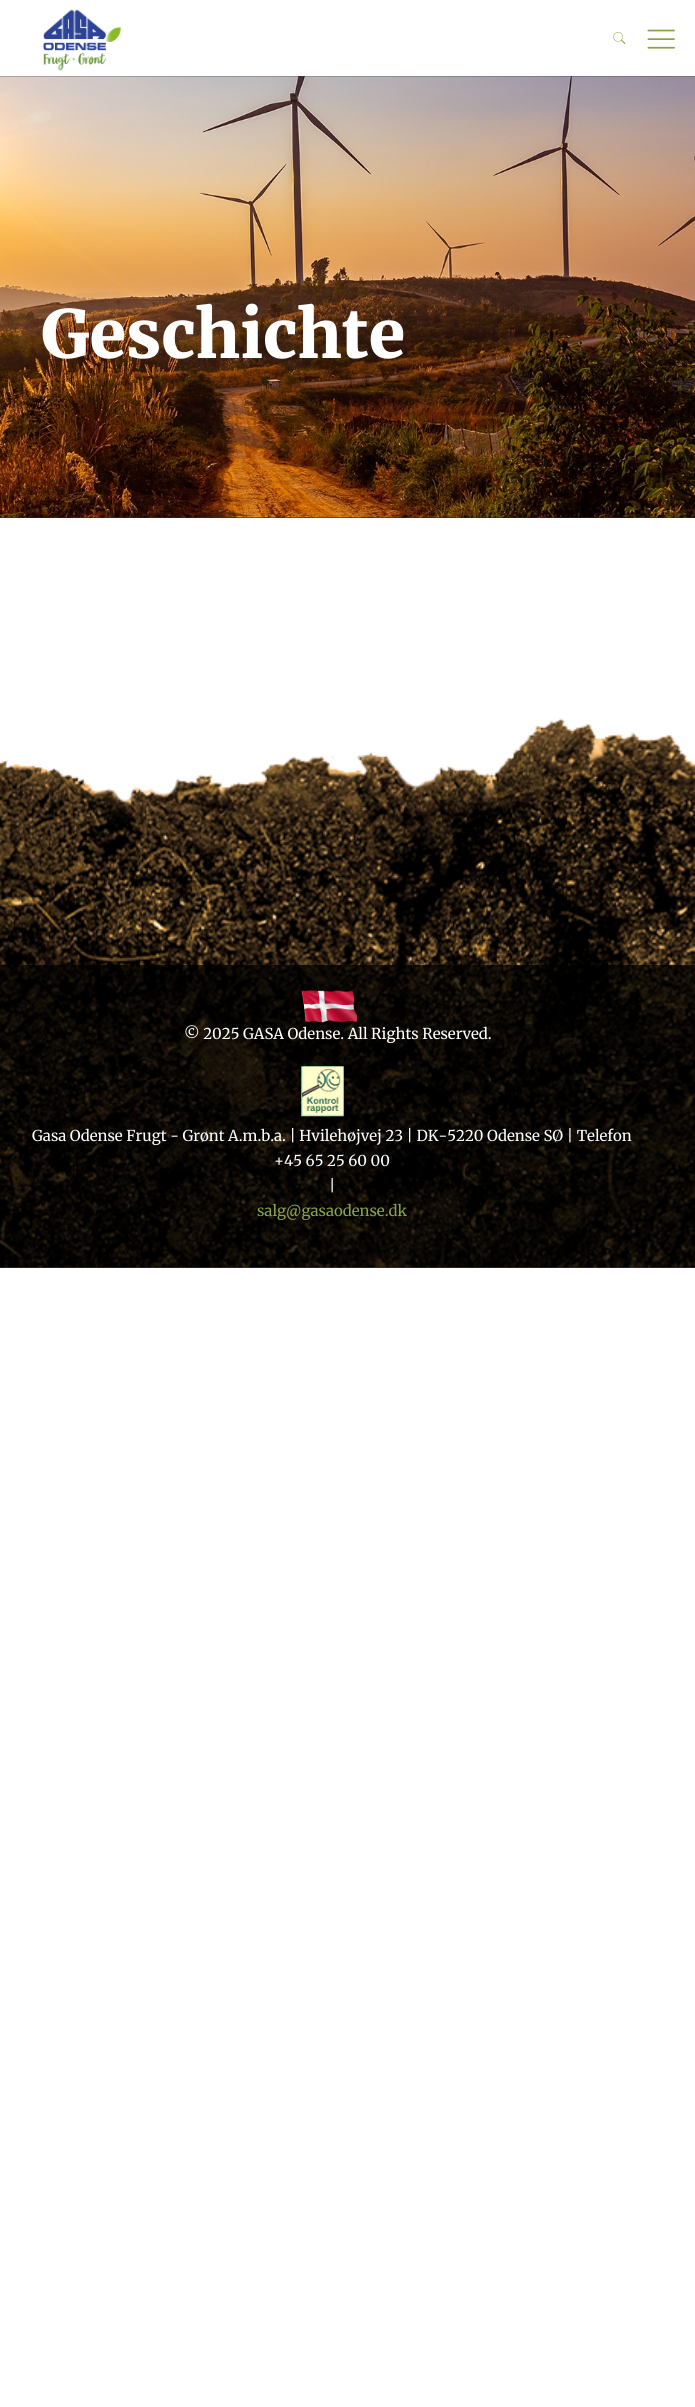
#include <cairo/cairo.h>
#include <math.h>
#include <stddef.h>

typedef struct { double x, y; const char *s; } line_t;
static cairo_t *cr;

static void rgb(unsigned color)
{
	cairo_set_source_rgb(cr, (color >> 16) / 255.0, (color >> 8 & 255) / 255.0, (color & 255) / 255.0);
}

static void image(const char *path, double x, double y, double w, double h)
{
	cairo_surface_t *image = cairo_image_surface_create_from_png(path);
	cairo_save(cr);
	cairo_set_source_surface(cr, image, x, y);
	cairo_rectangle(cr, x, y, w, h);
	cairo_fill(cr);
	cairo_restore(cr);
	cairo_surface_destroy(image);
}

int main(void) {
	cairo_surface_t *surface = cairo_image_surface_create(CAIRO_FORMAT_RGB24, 695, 2407);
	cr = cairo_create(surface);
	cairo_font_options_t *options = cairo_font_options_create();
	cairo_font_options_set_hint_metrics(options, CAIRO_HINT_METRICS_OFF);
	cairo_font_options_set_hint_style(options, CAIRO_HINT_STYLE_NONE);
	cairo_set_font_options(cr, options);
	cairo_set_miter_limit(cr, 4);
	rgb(0xffffff);
	cairo_paint(cr);
	image("img/1.png", 43, 9, 78, 62);
	image("img/2.png", 647, 29, 28, 20);
	image("img/3.png", 613, 32, 13, 13);
	rgb(0x291b11);
	cairo_rectangle(cr, 0, 76, 695, 442);
	cairo_fill(cr);
	image("img/4.png", 0, 76, 695, 442);
	image("img/5.png", 0, 718, 695, 550);
	cairo_set_source_rgba(cr, 0, 0, 0, 0.75);
	cairo_rectangle(cr, 0, 965, 695, 303);
	cairo_fill(cr);
	image("img/6.png", 301, 990, 56, 33);
	image("img/7.png", 301, 1066, 43, 51);
	cairo_select_font_face(cr, "Merriweather Black", CAIRO_FONT_SLANT_NORMAL, CAIRO_FONT_WEIGHT_NORMAL);
	cairo_set_font_size(cr, 66.25);
	rgb(0xffffff);
	cairo_move_to(cr, 41, 358);
	cairo_show_text(cr, "Geschichte");
	cairo_select_font_face(cr, "Merriweather", CAIRO_FONT_SLANT_NORMAL, CAIRO_FONT_WEIGHT_NORMAL);
	cairo_set_font_size(cr, 15);
	{
		static const line_t items[] = {
			{184, 1039, "© 2025 GASA Odense. All Rights Reserved."},
			{32, 1141, "Gasa Odense Frugt - Grønt A.m.b.a. | Hvilehøjvej 23 | DK-5220 Odense SØ | Telefon"},
			{274, 1166, "+45 65 25 60 00"},
			{329, 1191, "|"},
		};
		for (size_t i = 0; i < sizeof items / sizeof *items; i++) {
			cairo_move_to(cr, items[i].x, items[i].y);
			cairo_show_text(cr, items[i].s);
		}
	}
	rgb(0x88a446);
	cairo_move_to(cr, 257, 1216);
	cairo_show_text(cr, "salg@gasaodense.dk");
	cairo_surface_write_to_png(surface, "page.png");
	cairo_font_options_destroy(options);
	cairo_destroy(cr);
	cairo_surface_destroy(surface);
	return 0;
}
